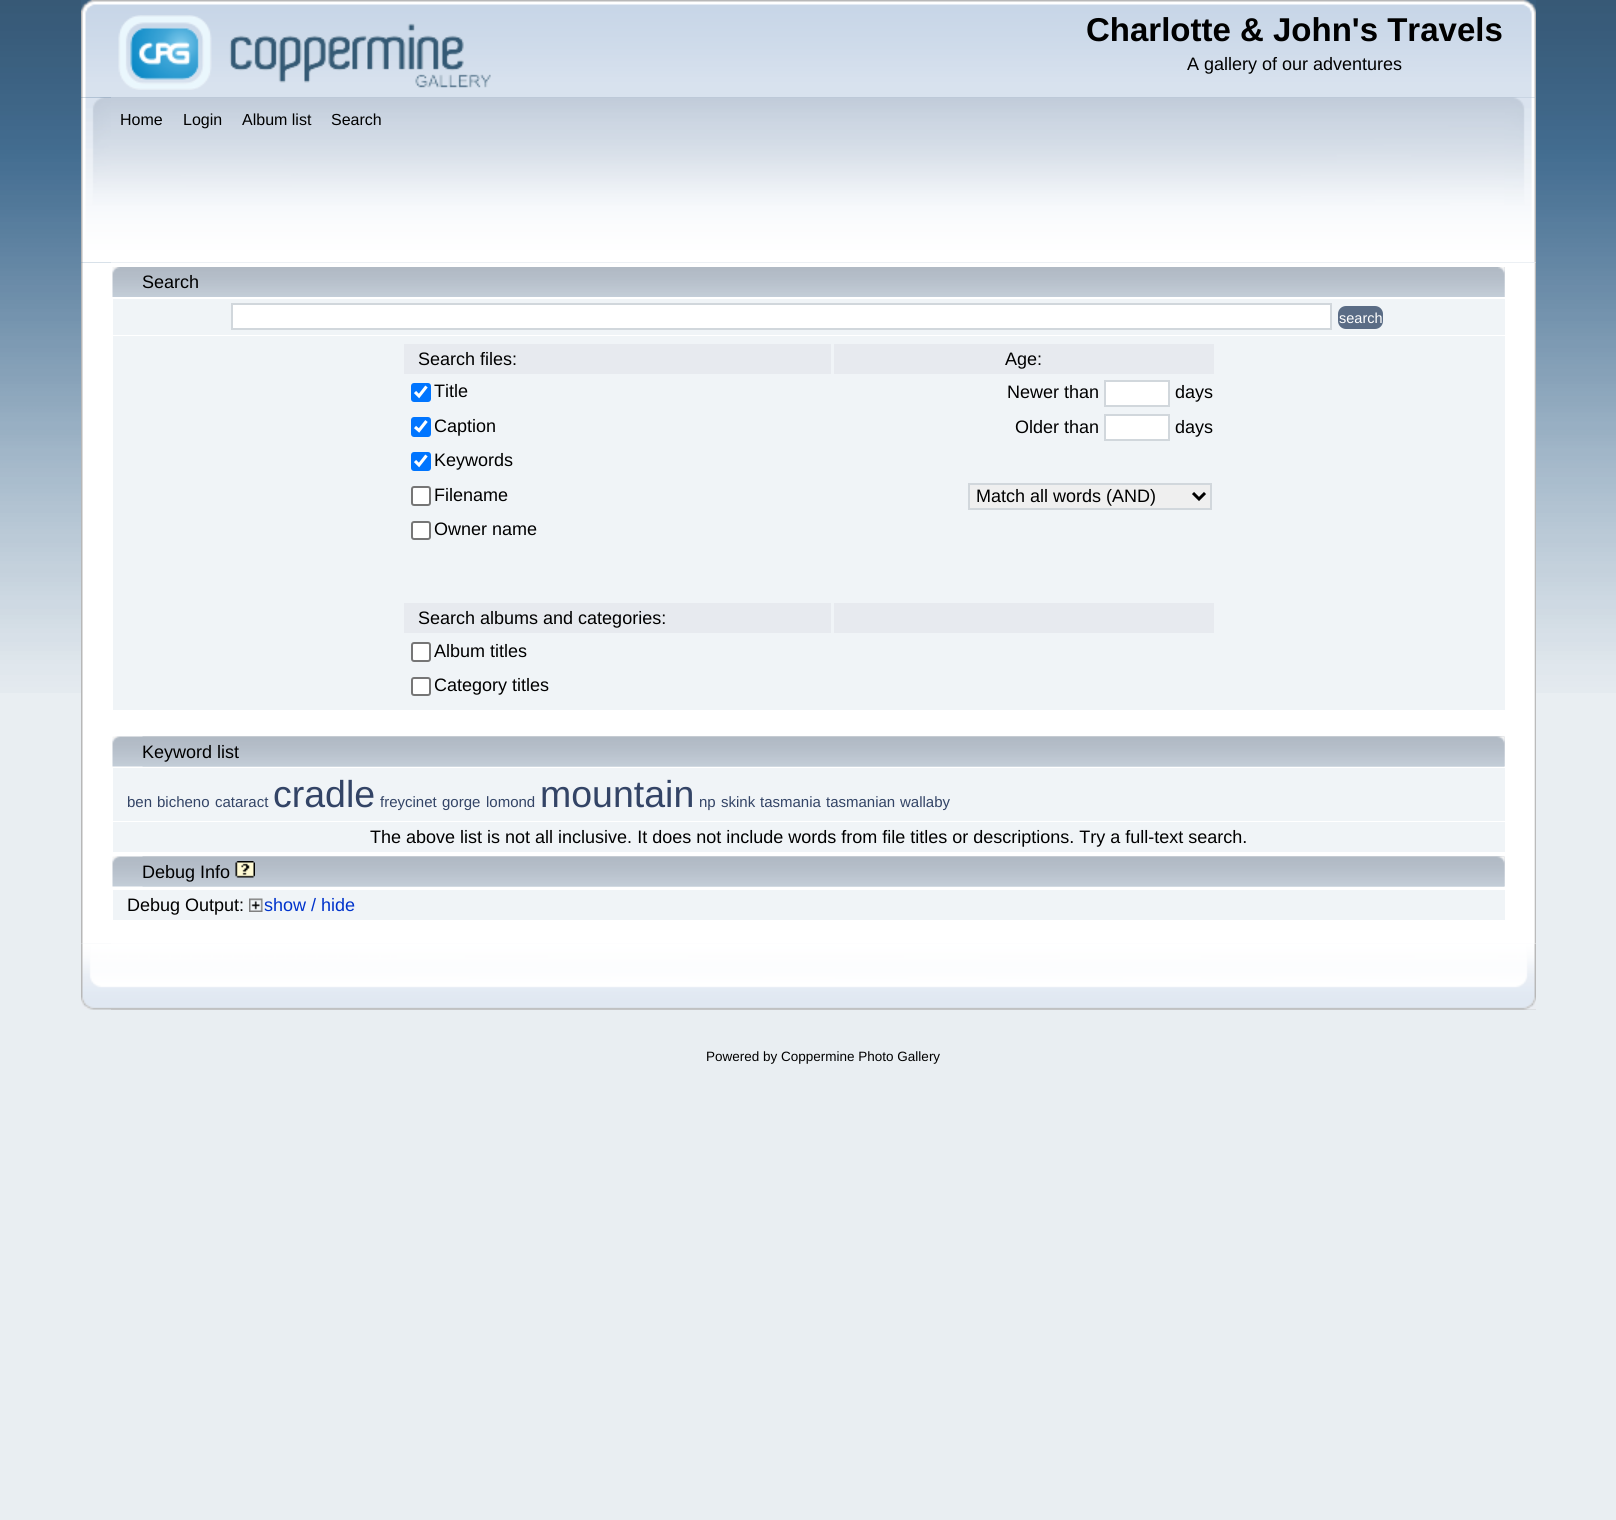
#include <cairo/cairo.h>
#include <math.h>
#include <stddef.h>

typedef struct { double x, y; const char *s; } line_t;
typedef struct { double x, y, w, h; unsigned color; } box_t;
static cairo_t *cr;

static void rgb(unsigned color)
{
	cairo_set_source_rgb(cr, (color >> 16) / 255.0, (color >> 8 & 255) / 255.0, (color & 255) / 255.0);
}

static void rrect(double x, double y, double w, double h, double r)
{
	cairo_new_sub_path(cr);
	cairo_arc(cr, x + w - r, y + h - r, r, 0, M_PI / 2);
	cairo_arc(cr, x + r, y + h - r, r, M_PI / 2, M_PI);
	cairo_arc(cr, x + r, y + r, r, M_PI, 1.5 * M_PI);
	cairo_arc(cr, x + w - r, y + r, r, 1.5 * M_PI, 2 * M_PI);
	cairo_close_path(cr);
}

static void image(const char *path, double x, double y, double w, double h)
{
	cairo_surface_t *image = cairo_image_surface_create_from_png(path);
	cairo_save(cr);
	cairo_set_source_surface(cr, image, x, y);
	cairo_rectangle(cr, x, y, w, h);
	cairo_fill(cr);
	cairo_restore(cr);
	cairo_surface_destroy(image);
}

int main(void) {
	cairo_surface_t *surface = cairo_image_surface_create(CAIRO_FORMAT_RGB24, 1616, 1520);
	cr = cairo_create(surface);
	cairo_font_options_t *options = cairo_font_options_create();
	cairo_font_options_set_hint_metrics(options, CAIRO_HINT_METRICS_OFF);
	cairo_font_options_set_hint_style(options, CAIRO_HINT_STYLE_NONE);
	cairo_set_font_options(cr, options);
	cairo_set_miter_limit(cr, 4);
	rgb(0xe9eef2);
	cairo_paint(cr);
	image("img/1.png", 0, 0, 1616, 693);
	image("img/2.png", 81, 0, 1455, 98);
	image("img/3.png", 111, 0, 1425, 98);
	image("img/4.png", 118, 15, 373, 75);
	image("img/5.png", 81, 97, 1455, 166);
	image("img/6.png", 111, 97, 1425, 166);
	image("img/7.png", 81, 262, 1455, 682);
	image("img/8.png", 1534, 262, 2, 682);
	image("img/9.png", 112, 267, 1393, 30);
	image("img/10.png", 1498, 267, 7, 30);
	rgb(0xf0f4f7);
	cairo_rectangle(cr, 113, 299, 1392, 36);
	cairo_fill(cr);
	rgb(0xffffff);
	cairo_rectangle(cr, 232, 304, 1099, 25);
	cairo_fill_preserve(cr);
	rgb(0xd1d7dc);
	cairo_stroke(cr);
	rgb(0x5a6c85);
	rrect(1339, 307, 43, 21, 7);
	cairo_fill_preserve(cr);
	cairo_stroke(cr);
	{
		static const box_t items[] = {
			{113, 336, 1392, 374, 0xf0f4f7},
			{404, 344, 427, 30, 0xe7eaef},
			{834, 344, 380, 30, 0xe7eaef},
		};
		for (size_t i = 0; i < sizeof items / sizeof *items; i++) {
			rgb(items[i].color);
			cairo_rectangle(cr, items[i].x, items[i].y, items[i].w, items[i].h);
			cairo_fill(cr);
		}
	}
	rgb(0x0075ff);
	rrect(411, 383, 20, 19, 3);
	cairo_fill(cr);
	cairo_new_path(cr);
	cairo_move_to(cr, 415, 392);
	cairo_line_to(cr, 419, 396);
	cairo_line_to(cr, 426.5, 386.5);
	rgb(0xffffff);
	cairo_set_line_width(cr, 3.1);
	cairo_stroke(cr);
	cairo_rectangle(cr, 1105, 381, 64, 25);
	cairo_fill_preserve(cr);
	rgb(0xd1d7dc);
	cairo_set_line_width(cr, 2);
	cairo_stroke(cr);
	rgb(0x0075ff);
	rrect(411, 417, 20, 20, 3);
	cairo_fill(cr);
	cairo_new_path(cr);
	cairo_move_to(cr, 415, 427);
	cairo_line_to(cr, 419, 430.5);
	cairo_line_to(cr, 426.5, 421);
	rgb(0xffffff);
	cairo_set_line_width(cr, 3.1);
	cairo_stroke(cr);
	cairo_rectangle(cr, 1105, 415, 64, 25);
	cairo_fill_preserve(cr);
	rgb(0xd1d7dc);
	cairo_set_line_width(cr, 2);
	cairo_stroke(cr);
	rgb(0x0075ff);
	rrect(411, 452, 20, 19, 3);
	cairo_fill(cr);
	cairo_new_path(cr);
	cairo_move_to(cr, 415, 461);
	cairo_line_to(cr, 419, 465);
	cairo_line_to(cr, 426.5, 455.5);
	rgb(0xffffff);
	cairo_set_line_width(cr, 3.1);
	cairo_stroke(cr);
	rrect(412, 487, 18, 18, 2);
	cairo_fill_preserve(cr);
	rgb(0x767676);
	cairo_set_line_width(cr, 2);
	cairo_stroke(cr);
	rgb(0xefefef);
	cairo_rectangle(cr, 969, 484, 242, 25);
	cairo_fill_preserve(cr);
	rgb(0xd1d7dc);
	cairo_stroke(cr);
	cairo_new_path(cr);
	cairo_move_to(cr, 1193, 493);
	cairo_line_to(cr, 1199, 499);
	cairo_line_to(cr, 1205, 493);
	rgb(0x000000);
	cairo_set_line_width(cr, 3);
	cairo_stroke(cr);
	rgb(0xffffff);
	rrect(412, 522, 18, 17, 2);
	cairo_fill_preserve(cr);
	rgb(0x767676);
	cairo_set_line_width(cr, 2);
	cairo_stroke(cr);
	rgb(0xe7eaef);
	cairo_rectangle(cr, 404, 603, 427, 30);
	cairo_fill(cr);
	cairo_rectangle(cr, 834, 603, 380, 30);
	cairo_fill(cr);
	rgb(0xffffff);
	rrect(412, 643, 18, 18, 2);
	cairo_fill_preserve(cr);
	rgb(0x767676);
	cairo_stroke(cr);
	rgb(0xffffff);
	rrect(412, 678, 18, 17, 2);
	cairo_fill_preserve(cr);
	rgb(0x767676);
	cairo_stroke(cr);
	image("img/11.png", 112, 736, 1393, 31);
	image("img/12.png", 142, 736, 1363, 31);
	rgb(0xf0f4f7);
	cairo_rectangle(cr, 113, 768, 1392, 53);
	cairo_fill(cr);
	cairo_rectangle(cr, 113, 822, 1392, 30);
	cairo_fill(cr);
	image("img/11.png", 112, 856, 1393, 31);
	image("img/12.png", 142, 856, 1363, 31);
	image("img/13.png", 235, 861, 20, 17);
	cairo_rectangle(cr, 113, 890, 1392, 30);
	cairo_fill(cr);
	image("img/14.png", 249, 898, 14, 14);
	image("img/15.png", 81, 943, 1455, 67);
	image("img/16.png", 111, 943, 1425, 67);
	cairo_select_font_face(cr, "Liberation Sans", CAIRO_FONT_SLANT_NORMAL, CAIRO_FONT_WEIGHT_BOLD);
	cairo_set_font_size(cr, 33);
	rgb(0x000000);
	cairo_move_to(cr, 1086, 41);
	cairo_show_text(cr, "Charlotte & John's Travels");
	cairo_select_font_face(cr, "Liberation Sans", CAIRO_FONT_SLANT_NORMAL, CAIRO_FONT_WEIGHT_NORMAL);
	cairo_set_font_size(cr, 18);
	cairo_move_to(cr, 1187, 70);
	cairo_show_text(cr, "A gallery of our adventures");
	cairo_set_font_size(cr, 16);
	{
		static const line_t items[] = {
			{120, 125, "Home"},
			{183, 125, "Login"},
			{242, 125, "Album list"},
			{331, 125, "Search"},
		};
		for (size_t i = 0; i < sizeof items / sizeof *items; i++) {
			cairo_move_to(cr, items[i].x, items[i].y);
			cairo_show_text(cr, items[i].s);
		}
	}
	cairo_set_font_size(cr, 18);
	cairo_move_to(cr, 142, 288);
	cairo_show_text(cr, "Search");
	cairo_set_font_size(cr, 14.5);
	rgb(0xffffff);
	cairo_move_to(cr, 1339, 323);
	cairo_show_text(cr, "search");
	cairo_set_font_size(cr, 18);
	rgb(0x000000);
	{
		static const line_t items[] = {
			{418, 365, "Search files:"},
			{1005, 365, "Age:"},
			{434, 397, "Title"},
			{1007, 398, "Newer than"},
			{1175, 398, "days"},
			{434, 432, "Caption"},
			{1015, 433, "Older than"},
			{1175, 433, "days"},
			{434, 466, "Keywords"},
			{434, 501, "Filename"},
			{976, 502, "Match all words (AND)"},
			{434, 535, "Owner name"},
			{418, 624, "Search albums and categories:"},
			{434, 657, "Album titles"},
			{434, 691, "Category titles"},
			{142, 758, "Keyword list"},
		};
		for (size_t i = 0; i < sizeof items / sizeof *items; i++) {
			cairo_move_to(cr, items[i].x, items[i].y);
			cairo_show_text(cr, items[i].s);
		}
	}
	cairo_set_font_size(cr, 15);
	rgb(0x334466);
	{
		static const line_t items[] = {
			{127, 807, "ben"},
			{157, 807, "bicheno"},
			{215, 807, "cataract"},
		};
		for (size_t i = 0; i < sizeof items / sizeof *items; i++) {
			cairo_move_to(cr, items[i].x, items[i].y);
			cairo_show_text(cr, items[i].s);
		}
	}
	cairo_set_font_size(cr, 37.5);
	cairo_move_to(cr, 273, 807);
	cairo_show_text(cr, "cradle");
	cairo_set_font_size(cr, 15);
	{
		static const line_t items[] = {
			{380, 807, "freycinet"},
			{442, 807, "gorge"},
			{486, 807, "lomond"},
		};
		for (size_t i = 0; i < sizeof items / sizeof *items; i++) {
			cairo_move_to(cr, items[i].x, items[i].y);
			cairo_show_text(cr, items[i].s);
		}
	}
	cairo_set_font_size(cr, 37.5);
	cairo_move_to(cr, 540, 807);
	cairo_show_text(cr, "mountain");
	cairo_set_font_size(cr, 15);
	{
		static const line_t items[] = {
			{699, 807, "np"},
			{721, 807, "skink"},
			{760, 807, "tasmania"},
			{826, 807, "tasmanian"},
			{900, 807, "wallaby"},
		};
		for (size_t i = 0; i < sizeof items / sizeof *items; i++) {
			cairo_move_to(cr, items[i].x, items[i].y);
			cairo_show_text(cr, items[i].s);
		}
	}
	cairo_set_font_size(cr, 18);
	rgb(0x000000);
	{
		static const line_t items[] = {
			{370, 843, "The above list is not all inclusive. It does not include words from file titles or descriptions. Try a full-text search."},
			{142, 878, "Debug Info"},
			{127, 911, "Debug Output:"},
		};
		for (size_t i = 0; i < sizeof items / sizeof *items; i++) {
			cairo_move_to(cr, items[i].x, items[i].y);
			cairo_show_text(cr, items[i].s);
		}
	}
	rgb(0x0033cc);
	cairo_move_to(cr, 264, 911);
	cairo_show_text(cr, "show / hide");
	cairo_set_font_size(cr, 13.5);
	rgb(0x000000);
	cairo_move_to(cr, 706, 1061);
	cairo_show_text(cr, "Powered by Coppermine Photo Gallery");
	cairo_surface_write_to_png(surface, "page.png");
	cairo_font_options_destroy(options);
	cairo_destroy(cr);
	cairo_surface_destroy(surface);
	return 0;
}
